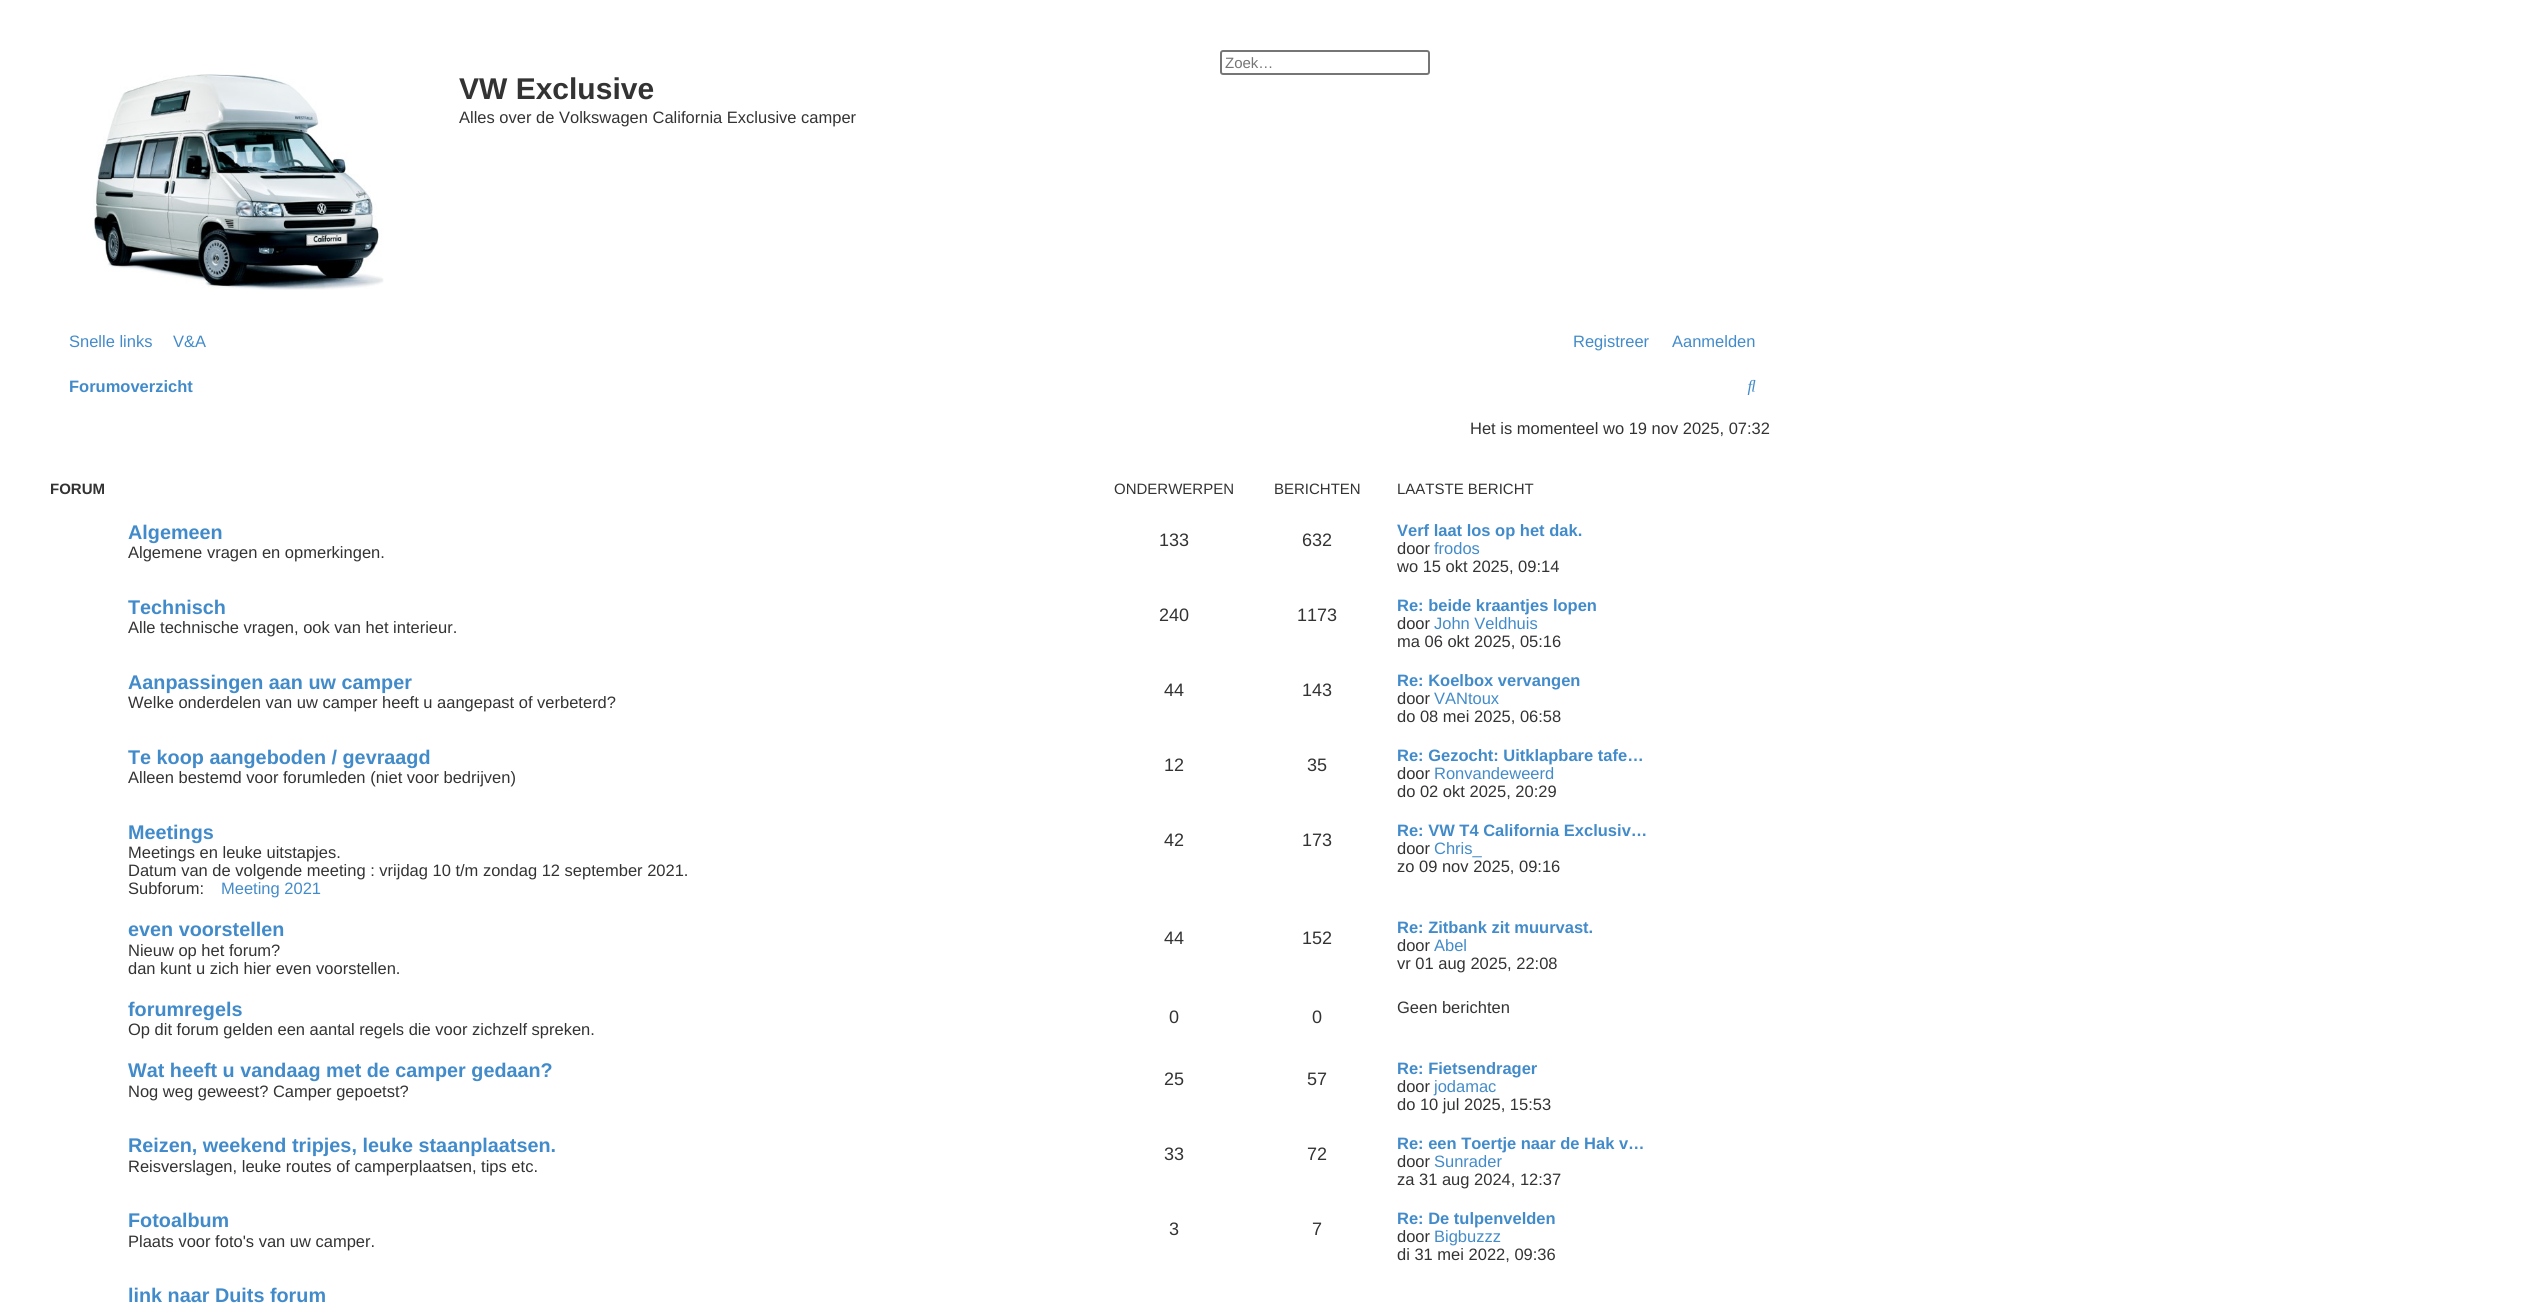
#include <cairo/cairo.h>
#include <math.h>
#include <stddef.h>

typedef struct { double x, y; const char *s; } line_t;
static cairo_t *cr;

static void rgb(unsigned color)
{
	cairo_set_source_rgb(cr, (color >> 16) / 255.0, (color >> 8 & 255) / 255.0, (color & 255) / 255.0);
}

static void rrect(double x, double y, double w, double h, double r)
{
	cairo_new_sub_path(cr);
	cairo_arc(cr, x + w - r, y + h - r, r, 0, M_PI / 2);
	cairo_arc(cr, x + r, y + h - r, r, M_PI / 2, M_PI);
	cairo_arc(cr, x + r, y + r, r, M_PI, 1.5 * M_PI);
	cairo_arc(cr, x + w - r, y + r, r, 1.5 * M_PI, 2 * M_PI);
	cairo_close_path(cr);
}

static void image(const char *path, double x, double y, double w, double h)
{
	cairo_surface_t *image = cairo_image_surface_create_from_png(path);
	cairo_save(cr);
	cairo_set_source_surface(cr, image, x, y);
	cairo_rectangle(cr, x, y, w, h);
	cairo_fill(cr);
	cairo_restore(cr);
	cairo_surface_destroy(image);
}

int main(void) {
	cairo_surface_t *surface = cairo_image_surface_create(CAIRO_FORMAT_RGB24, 2528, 1306);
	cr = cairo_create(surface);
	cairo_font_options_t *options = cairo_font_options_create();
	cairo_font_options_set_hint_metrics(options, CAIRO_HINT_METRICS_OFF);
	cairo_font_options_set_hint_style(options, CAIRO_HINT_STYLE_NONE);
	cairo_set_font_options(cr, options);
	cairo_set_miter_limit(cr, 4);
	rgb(0xffffff);
	cairo_paint(cr);
	rrect(1221, 51, 208, 23, 2);
	rgb(0x767676);
	cairo_stroke(cr);
	image("img/1.png", 93, 74, 291, 216);
	image("img/2.png", 1747, 379, 9, 16);
	cairo_select_font_face(cr, "Liberation Sans", CAIRO_FONT_SLANT_NORMAL, CAIRO_FONT_WEIGHT_NORMAL);
	cairo_set_font_size(cr, 15);
	rgb(0x757575);
	cairo_move_to(cr, 1225, 68);
	cairo_show_text(cr, "Zoek…");
	cairo_select_font_face(cr, "Liberation Sans", CAIRO_FONT_SLANT_NORMAL, CAIRO_FONT_WEIGHT_BOLD);
	cairo_set_font_size(cr, 30);
	rgb(0x333333);
	cairo_move_to(cr, 459, 99);
	cairo_show_text(cr, "VW Exclusive");
	cairo_select_font_face(cr, "Liberation Sans", CAIRO_FONT_SLANT_NORMAL, CAIRO_FONT_WEIGHT_NORMAL);
	cairo_set_font_size(cr, 16.5);
	cairo_move_to(cr, 459, 123);
	cairo_show_text(cr, "Alles over de Volkswagen California Exclusive camper");
	rgb(0x428bca);
	{
		static const line_t items[] = {
			{69, 347, "Snelle links"},
			{173, 347, "V&A"},
			{1573, 347, "Registreer"},
			{1672, 347, "Aanmelden"},
		};
		for (size_t i = 0; i < sizeof items / sizeof *items; i++) {
			cairo_move_to(cr, items[i].x, items[i].y);
			cairo_show_text(cr, items[i].s);
		}
	}
	cairo_select_font_face(cr, "Liberation Sans", CAIRO_FONT_SLANT_NORMAL, CAIRO_FONT_WEIGHT_BOLD);
	cairo_move_to(cr, 69, 392);
	cairo_show_text(cr, "Forumoverzicht");
	cairo_select_font_face(cr, "Liberation Sans", CAIRO_FONT_SLANT_NORMAL, CAIRO_FONT_WEIGHT_NORMAL);
	rgb(0x333333);
	cairo_move_to(cr, 1470, 434);
	cairo_show_text(cr, "Het is momenteel wo 19 nov 2025, 07:32");
	cairo_select_font_face(cr, "Liberation Sans", CAIRO_FONT_SLANT_NORMAL, CAIRO_FONT_WEIGHT_BOLD);
	cairo_set_font_size(cr, 15);
	cairo_move_to(cr, 50, 494);
	cairo_show_text(cr, "FORUM");
	cairo_select_font_face(cr, "Liberation Sans", CAIRO_FONT_SLANT_NORMAL, CAIRO_FONT_WEIGHT_NORMAL);
	{
		static const line_t items[] = {
			{1114, 494, "ONDERWERPEN"},
			{1274, 494, "BERICHTEN"},
			{1397, 494, "LAATSTE BERICHT"},
		};
		for (size_t i = 0; i < sizeof items / sizeof *items; i++) {
			cairo_move_to(cr, items[i].x, items[i].y);
			cairo_show_text(cr, items[i].s);
		}
	}
	cairo_select_font_face(cr, "Liberation Sans", CAIRO_FONT_SLANT_NORMAL, CAIRO_FONT_WEIGHT_BOLD);
	cairo_set_font_size(cr, 19.8);
	rgb(0x428bca);
	cairo_move_to(cr, 128, 539);
	cairo_show_text(cr, "Algemeen");
	cairo_select_font_face(cr, "Liberation Sans", CAIRO_FONT_SLANT_NORMAL, CAIRO_FONT_WEIGHT_NORMAL);
	cairo_set_font_size(cr, 16.5);
	rgb(0x333333);
	cairo_move_to(cr, 128, 558);
	cairo_show_text(cr, "Algemene vragen en opmerkingen.");
	cairo_set_font_size(cr, 18);
	cairo_move_to(cr, 1159, 546);
	cairo_show_text(cr, "133");
	cairo_move_to(cr, 1302, 546);
	cairo_show_text(cr, "632");
	cairo_select_font_face(cr, "Liberation Sans", CAIRO_FONT_SLANT_NORMAL, CAIRO_FONT_WEIGHT_BOLD);
	cairo_set_font_size(cr, 16.5);
	rgb(0x428bca);
	cairo_move_to(cr, 1397, 536);
	cairo_show_text(cr, "Verf laat los op het dak.");
	cairo_select_font_face(cr, "Liberation Sans", CAIRO_FONT_SLANT_NORMAL, CAIRO_FONT_WEIGHT_NORMAL);
	rgb(0x333333);
	cairo_move_to(cr, 1397, 554);
	cairo_show_text(cr, "door");
	rgb(0x428bca);
	cairo_move_to(cr, 1434, 554);
	cairo_show_text(cr, "frodos");
	rgb(0x333333);
	cairo_move_to(cr, 1397, 572);
	cairo_show_text(cr, "wo 15 okt 2025, 09:14");
	cairo_select_font_face(cr, "Liberation Sans", CAIRO_FONT_SLANT_NORMAL, CAIRO_FONT_WEIGHT_BOLD);
	cairo_set_font_size(cr, 19.8);
	rgb(0x428bca);
	cairo_move_to(cr, 128, 614);
	cairo_show_text(cr, "Technisch");
	cairo_select_font_face(cr, "Liberation Sans", CAIRO_FONT_SLANT_NORMAL, CAIRO_FONT_WEIGHT_NORMAL);
	cairo_set_font_size(cr, 16.5);
	rgb(0x333333);
	cairo_move_to(cr, 128, 633);
	cairo_show_text(cr, "Alle technische vragen, ook van het interieur.");
	cairo_set_font_size(cr, 18);
	cairo_move_to(cr, 1159, 621);
	cairo_show_text(cr, "240");
	cairo_move_to(cr, 1297, 621);
	cairo_show_text(cr, "1173");
	cairo_select_font_face(cr, "Liberation Sans", CAIRO_FONT_SLANT_NORMAL, CAIRO_FONT_WEIGHT_BOLD);
	cairo_set_font_size(cr, 16.5);
	rgb(0x428bca);
	cairo_move_to(cr, 1397, 611);
	cairo_show_text(cr, "Re: beide kraantjes lopen");
	cairo_select_font_face(cr, "Liberation Sans", CAIRO_FONT_SLANT_NORMAL, CAIRO_FONT_WEIGHT_NORMAL);
	rgb(0x333333);
	cairo_move_to(cr, 1397, 629);
	cairo_show_text(cr, "door");
	rgb(0x428bca);
	cairo_move_to(cr, 1434, 629);
	cairo_show_text(cr, "John Veldhuis");
	rgb(0x333333);
	cairo_move_to(cr, 1397, 647);
	cairo_show_text(cr, "ma 06 okt 2025, 05:16");
	cairo_select_font_face(cr, "Liberation Sans", CAIRO_FONT_SLANT_NORMAL, CAIRO_FONT_WEIGHT_BOLD);
	cairo_set_font_size(cr, 19.8);
	rgb(0x428bca);
	cairo_move_to(cr, 128, 689);
	cairo_show_text(cr, "Aanpassingen aan uw camper");
	cairo_select_font_face(cr, "Liberation Sans", CAIRO_FONT_SLANT_NORMAL, CAIRO_FONT_WEIGHT_NORMAL);
	cairo_set_font_size(cr, 16.5);
	rgb(0x333333);
	cairo_move_to(cr, 128, 708);
	cairo_show_text(cr, "Welke onderdelen van uw camper heeft u aangepast of verbeterd?");
	cairo_set_font_size(cr, 18);
	cairo_move_to(cr, 1164, 696);
	cairo_show_text(cr, "44");
	cairo_move_to(cr, 1302, 696);
	cairo_show_text(cr, "143");
	cairo_select_font_face(cr, "Liberation Sans", CAIRO_FONT_SLANT_NORMAL, CAIRO_FONT_WEIGHT_BOLD);
	cairo_set_font_size(cr, 16.5);
	rgb(0x428bca);
	cairo_move_to(cr, 1397, 686);
	cairo_show_text(cr, "Re: Koelbox vervangen");
	cairo_select_font_face(cr, "Liberation Sans", CAIRO_FONT_SLANT_NORMAL, CAIRO_FONT_WEIGHT_NORMAL);
	rgb(0x333333);
	cairo_move_to(cr, 1397, 704);
	cairo_show_text(cr, "door");
	rgb(0x428bca);
	cairo_move_to(cr, 1434, 704);
	cairo_show_text(cr, "VANtoux");
	rgb(0x333333);
	cairo_move_to(cr, 1397, 722);
	cairo_show_text(cr, "do 08 mei 2025, 06:58");
	cairo_select_font_face(cr, "Liberation Sans", CAIRO_FONT_SLANT_NORMAL, CAIRO_FONT_WEIGHT_BOLD);
	cairo_set_font_size(cr, 19.8);
	rgb(0x428bca);
	cairo_move_to(cr, 128, 764);
	cairo_show_text(cr, "Te koop aangeboden / gevraagd");
	cairo_select_font_face(cr, "Liberation Sans", CAIRO_FONT_SLANT_NORMAL, CAIRO_FONT_WEIGHT_NORMAL);
	cairo_set_font_size(cr, 16.5);
	rgb(0x333333);
	cairo_move_to(cr, 128, 783);
	cairo_show_text(cr, "Alleen bestemd voor forumleden (niet voor bedrijven)");
	cairo_set_font_size(cr, 18);
	cairo_move_to(cr, 1164, 771);
	cairo_show_text(cr, "12");
	cairo_move_to(cr, 1307, 771);
	cairo_show_text(cr, "35");
	cairo_select_font_face(cr, "Liberation Sans", CAIRO_FONT_SLANT_NORMAL, CAIRO_FONT_WEIGHT_BOLD);
	cairo_set_font_size(cr, 16.5);
	rgb(0x428bca);
	cairo_move_to(cr, 1397, 761);
	cairo_show_text(cr, "Re: Gezocht: Uitklapbare tafe…");
	cairo_select_font_face(cr, "Liberation Sans", CAIRO_FONT_SLANT_NORMAL, CAIRO_FONT_WEIGHT_NORMAL);
	rgb(0x333333);
	cairo_move_to(cr, 1397, 779);
	cairo_show_text(cr, "door");
	rgb(0x428bca);
	cairo_move_to(cr, 1434, 779);
	cairo_show_text(cr, "Ronvandeweerd");
	rgb(0x333333);
	cairo_move_to(cr, 1397, 797);
	cairo_show_text(cr, "do 02 okt 2025, 20:29");
	cairo_select_font_face(cr, "Liberation Sans", CAIRO_FONT_SLANT_NORMAL, CAIRO_FONT_WEIGHT_BOLD);
	cairo_set_font_size(cr, 19.8);
	rgb(0x428bca);
	cairo_move_to(cr, 128, 839);
	cairo_show_text(cr, "Meetings");
	cairo_select_font_face(cr, "Liberation Sans", CAIRO_FONT_SLANT_NORMAL, CAIRO_FONT_WEIGHT_NORMAL);
	cairo_set_font_size(cr, 16.5);
	rgb(0x333333);
	{
		static const line_t items[] = {
			{128, 858, "Meetings en leuke uitstapjes."},
			{128, 876, "Datum van de volgende meeting : vrijdag 10 t/m zondag 12 september 2021."},
			{128, 894, "Subforum:"},
		};
		for (size_t i = 0; i < sizeof items / sizeof *items; i++) {
			cairo_move_to(cr, items[i].x, items[i].y);
			cairo_show_text(cr, items[i].s);
		}
	}
	rgb(0x428bca);
	cairo_move_to(cr, 221, 894);
	cairo_show_text(cr, "Meeting 2021");
	cairo_set_font_size(cr, 18);
	rgb(0x333333);
	cairo_move_to(cr, 1164, 846);
	cairo_show_text(cr, "42");
	cairo_move_to(cr, 1302, 846);
	cairo_show_text(cr, "173");
	cairo_select_font_face(cr, "Liberation Sans", CAIRO_FONT_SLANT_NORMAL, CAIRO_FONT_WEIGHT_BOLD);
	cairo_set_font_size(cr, 16.5);
	rgb(0x428bca);
	cairo_move_to(cr, 1397, 836);
	cairo_show_text(cr, "Re: VW T4 California Exclusiv…");
	cairo_select_font_face(cr, "Liberation Sans", CAIRO_FONT_SLANT_NORMAL, CAIRO_FONT_WEIGHT_NORMAL);
	rgb(0x333333);
	cairo_move_to(cr, 1397, 854);
	cairo_show_text(cr, "door");
	rgb(0x428bca);
	cairo_move_to(cr, 1434, 854);
	cairo_show_text(cr, "Chris_");
	rgb(0x333333);
	cairo_move_to(cr, 1397, 872);
	cairo_show_text(cr, "zo 09 nov 2025, 09:16");
	cairo_select_font_face(cr, "Liberation Sans", CAIRO_FONT_SLANT_NORMAL, CAIRO_FONT_WEIGHT_BOLD);
	cairo_set_font_size(cr, 19.8);
	rgb(0x428bca);
	cairo_move_to(cr, 128, 936);
	cairo_show_text(cr, "even voorstellen");
	cairo_select_font_face(cr, "Liberation Sans", CAIRO_FONT_SLANT_NORMAL, CAIRO_FONT_WEIGHT_NORMAL);
	cairo_set_font_size(cr, 16.5);
	rgb(0x333333);
	cairo_move_to(cr, 128, 956);
	cairo_show_text(cr, "Nieuw op het forum?");
	cairo_move_to(cr, 128, 974);
	cairo_show_text(cr, "dan kunt u zich hier even voorstellen.");
	cairo_set_font_size(cr, 18);
	cairo_move_to(cr, 1164, 944);
	cairo_show_text(cr, "44");
	cairo_move_to(cr, 1302, 944);
	cairo_show_text(cr, "152");
	cairo_select_font_face(cr, "Liberation Sans", CAIRO_FONT_SLANT_NORMAL, CAIRO_FONT_WEIGHT_BOLD);
	cairo_set_font_size(cr, 16.5);
	rgb(0x428bca);
	cairo_move_to(cr, 1397, 933);
	cairo_show_text(cr, "Re: Zitbank zit muurvast.");
	cairo_select_font_face(cr, "Liberation Sans", CAIRO_FONT_SLANT_NORMAL, CAIRO_FONT_WEIGHT_NORMAL);
	rgb(0x333333);
	cairo_move_to(cr, 1397, 951);
	cairo_show_text(cr, "door");
	rgb(0x428bca);
	cairo_move_to(cr, 1434, 951);
	cairo_show_text(cr, "Abel");
	rgb(0x333333);
	cairo_move_to(cr, 1397, 969);
	cairo_show_text(cr, "vr 01 aug 2025, 22:08");
	cairo_select_font_face(cr, "Liberation Sans", CAIRO_FONT_SLANT_NORMAL, CAIRO_FONT_WEIGHT_BOLD);
	cairo_set_font_size(cr, 19.8);
	rgb(0x428bca);
	cairo_move_to(cr, 128, 1016);
	cairo_show_text(cr, "forumregels");
	cairo_select_font_face(cr, "Liberation Sans", CAIRO_FONT_SLANT_NORMAL, CAIRO_FONT_WEIGHT_NORMAL);
	cairo_set_font_size(cr, 16.5);
	rgb(0x333333);
	cairo_move_to(cr, 128, 1035);
	cairo_show_text(cr, "Op dit forum gelden een aantal regels die voor zichzelf spreken.");
	cairo_move_to(cr, 1397, 1013);
	cairo_show_text(cr, "Geen berichten");
	cairo_set_font_size(cr, 18);
	cairo_move_to(cr, 1169, 1023);
	cairo_show_text(cr, "0");
	cairo_move_to(cr, 1312, 1023);
	cairo_show_text(cr, "0");
	cairo_select_font_face(cr, "Liberation Sans", CAIRO_FONT_SLANT_NORMAL, CAIRO_FONT_WEIGHT_BOLD);
	cairo_set_font_size(cr, 19.8);
	rgb(0x428bca);
	cairo_move_to(cr, 128, 1077);
	cairo_show_text(cr, "Wat heeft u vandaag met de camper gedaan?");
	cairo_select_font_face(cr, "Liberation Sans", CAIRO_FONT_SLANT_NORMAL, CAIRO_FONT_WEIGHT_NORMAL);
	cairo_set_font_size(cr, 16.5);
	rgb(0x333333);
	cairo_move_to(cr, 128, 1097);
	cairo_show_text(cr, "Nog weg geweest? Camper gepoetst?");
	cairo_set_font_size(cr, 18);
	cairo_move_to(cr, 1164, 1085);
	cairo_show_text(cr, "25");
	cairo_move_to(cr, 1307, 1085);
	cairo_show_text(cr, "57");
	cairo_select_font_face(cr, "Liberation Sans", CAIRO_FONT_SLANT_NORMAL, CAIRO_FONT_WEIGHT_BOLD);
	cairo_set_font_size(cr, 16.5);
	rgb(0x428bca);
	cairo_move_to(cr, 1397, 1074);
	cairo_show_text(cr, "Re: Fietsendrager");
	cairo_select_font_face(cr, "Liberation Sans", CAIRO_FONT_SLANT_NORMAL, CAIRO_FONT_WEIGHT_NORMAL);
	rgb(0x333333);
	cairo_move_to(cr, 1397, 1092);
	cairo_show_text(cr, "door");
	rgb(0x428bca);
	cairo_move_to(cr, 1434, 1092);
	cairo_show_text(cr, "jodamac");
	rgb(0x333333);
	cairo_move_to(cr, 1397, 1110);
	cairo_show_text(cr, "do 10 jul 2025, 15:53");
	cairo_select_font_face(cr, "Liberation Sans", CAIRO_FONT_SLANT_NORMAL, CAIRO_FONT_WEIGHT_BOLD);
	cairo_set_font_size(cr, 19.8);
	rgb(0x428bca);
	cairo_move_to(cr, 128, 1152);
	cairo_show_text(cr, "Reizen, weekend tripjes, leuke staanplaatsen.");
	cairo_select_font_face(cr, "Liberation Sans", CAIRO_FONT_SLANT_NORMAL, CAIRO_FONT_WEIGHT_NORMAL);
	cairo_set_font_size(cr, 16.5);
	rgb(0x333333);
	cairo_move_to(cr, 128, 1172);
	cairo_show_text(cr, "Reisverslagen, leuke routes of camperplaatsen, tips etc.");
	cairo_set_font_size(cr, 18);
	cairo_move_to(cr, 1164, 1160);
	cairo_show_text(cr, "33");
	cairo_move_to(cr, 1307, 1160);
	cairo_show_text(cr, "72");
	cairo_select_font_face(cr, "Liberation Sans", CAIRO_FONT_SLANT_NORMAL, CAIRO_FONT_WEIGHT_BOLD);
	cairo_set_font_size(cr, 16.5);
	rgb(0x428bca);
	cairo_move_to(cr, 1397, 1149);
	cairo_show_text(cr, "Re: een Toertje naar de Hak v…");
	cairo_select_font_face(cr, "Liberation Sans", CAIRO_FONT_SLANT_NORMAL, CAIRO_FONT_WEIGHT_NORMAL);
	rgb(0x333333);
	cairo_move_to(cr, 1397, 1167);
	cairo_show_text(cr, "door");
	rgb(0x428bca);
	cairo_move_to(cr, 1434, 1167);
	cairo_show_text(cr, "Sunrader");
	rgb(0x333333);
	cairo_move_to(cr, 1397, 1185);
	cairo_show_text(cr, "za 31 aug 2024, 12:37");
	cairo_select_font_face(cr, "Liberation Sans", CAIRO_FONT_SLANT_NORMAL, CAIRO_FONT_WEIGHT_BOLD);
	cairo_set_font_size(cr, 19.8);
	rgb(0x428bca);
	cairo_move_to(cr, 128, 1227);
	cairo_show_text(cr, "Fotoalbum");
	cairo_select_font_face(cr, "Liberation Sans", CAIRO_FONT_SLANT_NORMAL, CAIRO_FONT_WEIGHT_NORMAL);
	cairo_set_font_size(cr, 16.5);
	rgb(0x333333);
	cairo_move_to(cr, 128, 1247);
	cairo_show_text(cr, "Plaats voor foto's van uw camper.");
	cairo_set_font_size(cr, 18);
	cairo_move_to(cr, 1169, 1235);
	cairo_show_text(cr, "3");
	cairo_move_to(cr, 1312, 1235);
	cairo_show_text(cr, "7");
	cairo_select_font_face(cr, "Liberation Sans", CAIRO_FONT_SLANT_NORMAL, CAIRO_FONT_WEIGHT_BOLD);
	cairo_set_font_size(cr, 16.5);
	rgb(0x428bca);
	cairo_move_to(cr, 1397, 1224);
	cairo_show_text(cr, "Re: De tulpenvelden");
	cairo_select_font_face(cr, "Liberation Sans", CAIRO_FONT_SLANT_NORMAL, CAIRO_FONT_WEIGHT_NORMAL);
	rgb(0x333333);
	cairo_move_to(cr, 1397, 1242);
	cairo_show_text(cr, "door");
	rgb(0x428bca);
	cairo_move_to(cr, 1434, 1242);
	cairo_show_text(cr, "Bigbuzzz");
	rgb(0x333333);
	cairo_move_to(cr, 1397, 1260);
	cairo_show_text(cr, "di 31 mei 2022, 09:36");
	cairo_select_font_face(cr, "Liberation Sans", CAIRO_FONT_SLANT_NORMAL, CAIRO_FONT_WEIGHT_BOLD);
	cairo_set_font_size(cr, 19.8);
	rgb(0x428bca);
	cairo_move_to(cr, 128, 1302);
	cairo_show_text(cr, "link naar Duits forum");
	cairo_surface_write_to_png(surface, "page.png");
	cairo_font_options_destroy(options);
	cairo_destroy(cr);
	cairo_surface_destroy(surface);
	return 0;
}
